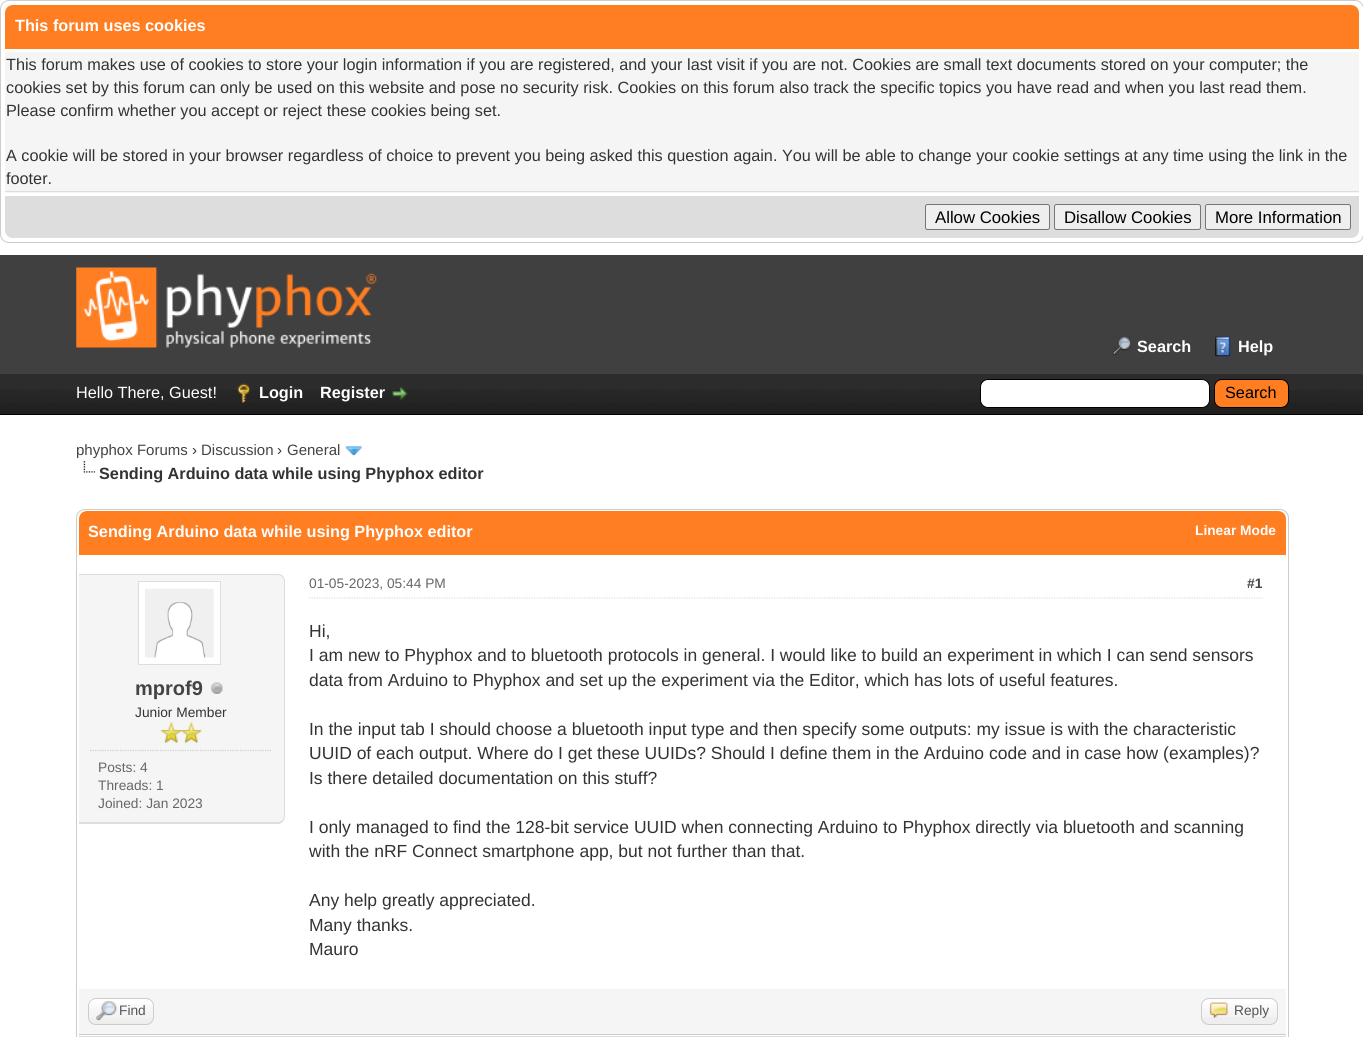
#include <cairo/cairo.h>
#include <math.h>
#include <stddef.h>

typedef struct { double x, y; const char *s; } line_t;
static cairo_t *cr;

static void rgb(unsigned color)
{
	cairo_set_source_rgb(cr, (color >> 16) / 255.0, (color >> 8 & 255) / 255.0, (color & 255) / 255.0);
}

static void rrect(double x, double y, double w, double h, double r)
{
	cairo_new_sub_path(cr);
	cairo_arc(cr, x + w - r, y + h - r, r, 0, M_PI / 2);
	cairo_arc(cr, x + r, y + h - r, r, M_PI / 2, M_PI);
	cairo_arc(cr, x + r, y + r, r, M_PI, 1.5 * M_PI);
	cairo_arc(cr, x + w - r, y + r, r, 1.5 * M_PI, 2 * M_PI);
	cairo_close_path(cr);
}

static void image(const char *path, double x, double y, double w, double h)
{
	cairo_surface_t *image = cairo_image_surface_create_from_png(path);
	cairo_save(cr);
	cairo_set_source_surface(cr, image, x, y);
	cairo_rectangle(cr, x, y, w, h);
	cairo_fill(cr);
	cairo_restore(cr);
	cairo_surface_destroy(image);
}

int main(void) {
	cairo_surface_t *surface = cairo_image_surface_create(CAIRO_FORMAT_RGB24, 1363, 1037);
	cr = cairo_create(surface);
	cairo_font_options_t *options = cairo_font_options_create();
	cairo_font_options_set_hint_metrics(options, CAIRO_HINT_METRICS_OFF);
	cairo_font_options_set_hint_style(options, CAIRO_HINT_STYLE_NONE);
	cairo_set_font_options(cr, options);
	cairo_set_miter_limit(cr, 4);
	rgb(0xffffff);
	cairo_paint(cr);
	rrect(0.5, 0.5, 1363, 242, 8.5);
	rgb(0xcccccc);
	cairo_set_line_width(cr, 1);
	cairo_stroke(cr);
	rgb(0xff7e22);
	cairo_new_path(cr);
	cairo_move_to(cr, 13, 5);
	cairo_line_to(cr, 1351, 5);
	cairo_curve_to(cr, 1355.5, 5, 1359, 8.5, 1359, 13);
	cairo_line_to(cr, 1359, 49);
	cairo_line_to(cr, 5, 49);
	cairo_line_to(cr, 5, 13);
	cairo_curve_to(cr, 5, 8.5, 8.5, 5, 13, 5);
	cairo_close_path(cr);
	cairo_fill(cr);
	rgb(0xf5f5f5);
	cairo_rectangle(cr, 5, 52, 1354, 141);
	cairo_fill(cr);
	rgb(0xdddddd);
	cairo_rectangle(cr, 5, 191, 1354, 1);
	cairo_fill(cr);
	cairo_new_path(cr);
	cairo_move_to(cr, 5, 195);
	cairo_line_to(cr, 1359, 195);
	cairo_line_to(cr, 1359, 230);
	cairo_curve_to(cr, 1359, 234.5, 1355.5, 238, 1351, 238);
	cairo_line_to(cr, 13, 238);
	cairo_curve_to(cr, 8.5, 238, 5, 234.5, 5, 230);
	cairo_close_path(cr);
	cairo_fill(cr);
	rgb(0xffffff);
	cairo_rectangle(cr, 5, 195, 1354, 1);
	cairo_fill(cr);
	rgb(0xefefef);
	rrect(925.5, 204.5, 124, 25, 2);
	cairo_fill_preserve(cr);
	rgb(0x767676);
	cairo_stroke(cr);
	rgb(0xefefef);
	rrect(1054.5, 204.5, 146, 25, 2);
	cairo_fill_preserve(cr);
	rgb(0x767676);
	cairo_stroke(cr);
	rgb(0xefefef);
	rrect(1205.5, 204.5, 145, 25, 2);
	cairo_fill_preserve(cr);
	rgb(0x767676);
	cairo_stroke(cr);
	rgb(0x404040);
	cairo_rectangle(cr, 0, 255, 1363, 118);
	cairo_fill(cr);
	image("img/1.png", 76, 267, 301, 81);
	image("img/2.png", 1112, 337, 19, 18);
	image("img/3.png", 1215, 336, 16, 21);
	image("img/4.png", 0, 374, 1363, 40);
	rgb(0x444444);
	cairo_rectangle(cr, 0, 373, 1363, 1);
	cairo_fill(cr);
	rgb(0x000000);
	cairo_rectangle(cr, 0, 414, 1363, 1);
	cairo_fill(cr);
	image("img/5.png", 237, 383, 14, 20);
	image("img/6.png", 392, 387, 16, 13);
	rgb(0xffffff);
	rrect(980.5, 379.5, 229, 28, 7.5);
	cairo_fill_preserve(cr);
	rgb(0x000000);
	cairo_stroke(cr);
	rgb(0xff7e22);
	rrect(1214.5, 379.5, 74, 28, 7.5);
	cairo_fill_preserve(cr);
	rgb(0x000000);
	cairo_stroke(cr);
	image("img/7.png", 345, 446, 18, 10);
	image("img/8.png", 83, 461, 12, 12);
	rrect(76.5, 509.5, 1212, 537, 8.5);
	rgb(0xcccccc);
	cairo_stroke(cr);
	rgb(0xff7e22);
	cairo_new_path(cr);
	cairo_move_to(cr, 87, 511);
	cairo_line_to(cr, 1278, 511);
	cairo_curve_to(cr, 1282.5, 511, 1286, 514.5, 1286, 519);
	cairo_line_to(cr, 1286, 555);
	cairo_line_to(cr, 79, 555);
	cairo_line_to(cr, 79, 519);
	cairo_curve_to(cr, 79, 514.5, 82.5, 511, 87, 511);
	cairo_close_path(cr);
	cairo_fill(cr);
	rgb(0xf5f5f5);
	cairo_new_path(cr);
	cairo_move_to(cr, 79, 574);
	cairo_line_to(cr, 277, 574);
	cairo_curve_to(cr, 281.5, 574, 285, 577.5, 285, 582);
	cairo_line_to(cr, 285, 816);
	cairo_curve_to(cr, 285, 820.5, 281.5, 824, 277, 824);
	cairo_line_to(cr, 79, 824);
	cairo_close_path(cr);
	cairo_fill(cr);
	rgb(0xdddddd);
	cairo_set_fill_rule(cr, CAIRO_FILL_RULE_EVEN_ODD);
	cairo_new_path(cr);
	cairo_move_to(cr, 79, 574);
	cairo_line_to(cr, 278, 574);
	cairo_curve_to(cr, 282, 574, 285, 577, 285, 581);
	cairo_line_to(cr, 285, 816);
	cairo_curve_to(cr, 285, 820, 282, 824, 278, 824);
	cairo_line_to(cr, 79, 824);
	cairo_close_path(cr);
	cairo_move_to(cr, 79, 575);
	cairo_line_to(cr, 278, 575);
	cairo_curve_to(cr, 281, 575, 284, 578, 284, 581);
	cairo_line_to(cr, 284, 816);
	cairo_curve_to(cr, 284, 820, 281, 822, 278, 822);
	cairo_line_to(cr, 79, 822);
	cairo_close_path(cr);
	cairo_fill(cr);
	rgb(0xffffff);
	cairo_rectangle(cr, 138.5, 581.5, 82, 83);
	cairo_fill_preserve(cr);
	rgb(0xdddddd);
	cairo_stroke(cr);
	image("img/9.png", 145, 588, 69, 70);
	image("img/10.png", 211, 682, 12, 12);
	image("img/11.png", 161, 722, 21, 21);
	image("img/12.png", 181, 722, 21, 21);
	cairo_new_path(cr);
	cairo_move_to(cr, 90, 750.5);
	cairo_line_to(cr, 271, 750.5);
	rgb(0xcccccc);
	cairo_set_line_width(cr, 1.2);
	cairo_set_dash(cr, (double[]){1.25, 1.25}, 2, 0);
	cairo_stroke(cr);
	cairo_new_path(cr);
	cairo_move_to(cr, 309, 598);
	cairo_line_to(cr, 1262.5, 598);
	rgb(0xdddddd);
	cairo_stroke(cr);
	rgb(0xf5f5f5);
	cairo_rectangle(cr, 79, 989, 1207, 45);
	cairo_fill(cr);
	rgb(0xcccccc);
	cairo_rectangle(cr, 79, 1034, 1207, 1);
	cairo_fill(cr);
	image("img/13.png", 88, 998, 66, 27);
	rrect(88.5, 998.5, 65, 26, 7.5);
	cairo_set_line_width(cr, 1);
	cairo_set_dash(cr, NULL, 0, 0);
	cairo_stroke(cr);
	image("img/14.png", 96, 1001, 21, 20);
	rgb(0xeeeeee);
	rrect(1201, 998, 77, 27, 8);
	cairo_fill(cr);
	image("img/15.png", 1201, 998, 76, 19);
	rrect(1201.5, 998.5, 76, 26, 7.5);
	rgb(0xcccccc);
	cairo_stroke(cr);
	image("img/16.png", 1209, 1002, 19, 16);
	rgb(0xdddddd);
	cairo_rectangle(cr, 79, 1036, 1207, 1);
	cairo_fill(cr);
	cairo_select_font_face(cr, "Liberation Sans", CAIRO_FONT_SLANT_NORMAL, CAIRO_FONT_WEIGHT_BOLD);
	cairo_set_font_size(cr, 16.25);
	rgb(0xffffff);
	cairo_move_to(cr, 15, 31);
	cairo_show_text(cr, "This forum uses cookies");
	cairo_select_font_face(cr, "Liberation Sans", CAIRO_FONT_SLANT_NORMAL, CAIRO_FONT_WEIGHT_NORMAL);
	rgb(0x333333);
	{
		static const line_t items[] = {
			{6, 70, "This forum makes use of cookies to store your login information if you are registered, and your last visit if you are not. Cookies are small text documents stored on your computer; the"},
			{6, 93, "cookies set by this forum can only be used on this website and pose no security risk. Cookies on this forum also track the specific topics you have read and when you last read them."},
			{6, 116, "Please confirm whether you accept or reject these cookies being set."},
			{6, 161, "A cookie will be stored in your browser regardless of choice to prevent you being asked this question again. You will be able to change your cookie settings at any time using the link in the"},
			{6, 184, "footer."},
		};
		for (size_t i = 0; i < sizeof items / sizeof *items; i++) {
			cairo_move_to(cr, items[i].x, items[i].y);
			cairo_show_text(cr, items[i].s);
		}
	}
	cairo_set_font_size(cr, 16.75);
	rgb(0x000000);
	{
		static const line_t items[] = {
			{935, 223, "Allow Cookies"},
			{1064, 223, "Disallow Cookies"},
			{1215, 223, "More Information"},
		};
		for (size_t i = 0; i < sizeof items / sizeof *items; i++) {
			cairo_move_to(cr, items[i].x, items[i].y);
			cairo_show_text(cr, items[i].s);
		}
	}
	cairo_select_font_face(cr, "Liberation Sans", CAIRO_FONT_SLANT_NORMAL, CAIRO_FONT_WEIGHT_BOLD);
	cairo_set_font_size(cr, 16.25);
	rgb(0xffffff);
	cairo_move_to(cr, 1137, 352);
	cairo_show_text(cr, "Search");
	cairo_move_to(cr, 1238, 352);
	cairo_show_text(cr, "Help");
	cairo_select_font_face(cr, "Liberation Sans", CAIRO_FONT_SLANT_NORMAL, CAIRO_FONT_WEIGHT_NORMAL);
	cairo_move_to(cr, 76, 398);
	cairo_show_text(cr, "Hello There, Guest!");
	cairo_select_font_face(cr, "Liberation Sans", CAIRO_FONT_SLANT_NORMAL, CAIRO_FONT_WEIGHT_BOLD);
	cairo_move_to(cr, 259, 398);
	cairo_show_text(cr, "Login");
	cairo_move_to(cr, 320, 398);
	cairo_show_text(cr, "Register");
	cairo_select_font_face(cr, "Liberation Sans", CAIRO_FONT_SLANT_NORMAL, CAIRO_FONT_WEIGHT_NORMAL);
	rgb(0x000000);
	cairo_move_to(cr, 1225, 398);
	cairo_show_text(cr, "Search");
	cairo_set_font_size(cr, 15);
	rgb(0x444444);
	cairo_move_to(cr, 76, 455);
	cairo_show_text(cr, "phyphox Forums");
	rgb(0x333333);
	cairo_move_to(cr, 192, 455);
	cairo_show_text(cr, "›");
	rgb(0x444444);
	cairo_move_to(cr, 201, 455);
	cairo_show_text(cr, "Discussion");
	rgb(0x333333);
	cairo_move_to(cr, 277, 455);
	cairo_show_text(cr, "›");
	rgb(0x444444);
	cairo_move_to(cr, 287, 455);
	cairo_show_text(cr, "General");
	cairo_select_font_face(cr, "Liberation Sans", CAIRO_FONT_SLANT_NORMAL, CAIRO_FONT_WEIGHT_BOLD);
	cairo_set_font_size(cr, 16.25);
	rgb(0x333333);
	cairo_move_to(cr, 99, 479);
	cairo_show_text(cr, "Sending Arduino data while using Phyphox editor");
	rgb(0xffffff);
	cairo_move_to(cr, 88, 537);
	cairo_show_text(cr, "Sending Arduino data while using Phyphox editor");
	cairo_set_font_size(cr, 13.75);
	cairo_move_to(cr, 1195, 535);
	cairo_show_text(cr, "Linear Mode");
	cairo_set_font_size(cr, 20);
	rgb(0x444444);
	cairo_move_to(cr, 135, 695);
	cairo_show_text(cr, "mprof9");
	cairo_select_font_face(cr, "Liberation Sans", CAIRO_FONT_SLANT_NORMAL, CAIRO_FONT_WEIGHT_NORMAL);
	cairo_set_font_size(cr, 13.75);
	rgb(0x333333);
	cairo_move_to(cr, 135, 717);
	cairo_show_text(cr, "Junior Member");
	rgb(0x666666);
	{
		static const line_t items[] = {
			{98, 772, "Posts: 4"},
			{98, 790, "Threads: 1"},
			{98, 808, "Joined: Jan 2023"},
			{309, 588, "01-05-2023, 05:44 PM"},
		};
		for (size_t i = 0; i < sizeof items / sizeof *items; i++) {
			cairo_move_to(cr, items[i].x, items[i].y);
			cairo_show_text(cr, items[i].s);
		}
	}
	cairo_select_font_face(cr, "Liberation Sans", CAIRO_FONT_SLANT_NORMAL, CAIRO_FONT_WEIGHT_BOLD);
	rgb(0x444444);
	cairo_move_to(cr, 1247, 588);
	cairo_show_text(cr, "#1");
	cairo_select_font_face(cr, "Liberation Sans", CAIRO_FONT_SLANT_NORMAL, CAIRO_FONT_WEIGHT_NORMAL);
	cairo_set_font_size(cr, 17.5);
	rgb(0x333333);
	{
		static const line_t items[] = {
			{309, 637, "Hi,"},
			{309, 661, "I am new to Phyphox and to bluetooth protocols in general. I would like to build an experiment in which I can send sensors"},
			{309, 686, "data from Arduino to Phyphox and set up the experiment via the Editor, which has lots of useful features."},
			{309, 735, "In the input tab I should choose a bluetooth input type and then specify some outputs: my issue is with the characteristic"},
			{309, 759, "UUID of each output. Where do I get these UUIDs? Should I define them in the Arduino code and in case how (examples)?"},
			{309, 784, "Is there detailed documentation on this stuff?"},
			{309, 833, "I only managed to find the 128-bit service UUID when connecting Arduino to Phyphox directly via bluetooth and scanning"},
			{309, 857, "with the nRF Connect smartphone app, but not further than that."},
			{309, 906, "Any help greatly appreciated."},
			{309, 931, "Many thanks."},
			{309, 955, "Mauro"},
		};
		for (size_t i = 0; i < sizeof items / sizeof *items; i++) {
			cairo_move_to(cr, items[i].x, items[i].y);
			cairo_show_text(cr, items[i].s);
		}
	}
	cairo_set_font_size(cr, 13.75);
	rgb(0x555555);
	cairo_move_to(cr, 119, 1015);
	cairo_show_text(cr, "Find");
	cairo_move_to(cr, 1234, 1015);
	cairo_show_text(cr, "Reply");
	cairo_surface_write_to_png(surface, "page.png");
	cairo_font_options_destroy(options);
	cairo_destroy(cr);
	cairo_surface_destroy(surface);
	return 0;
}
